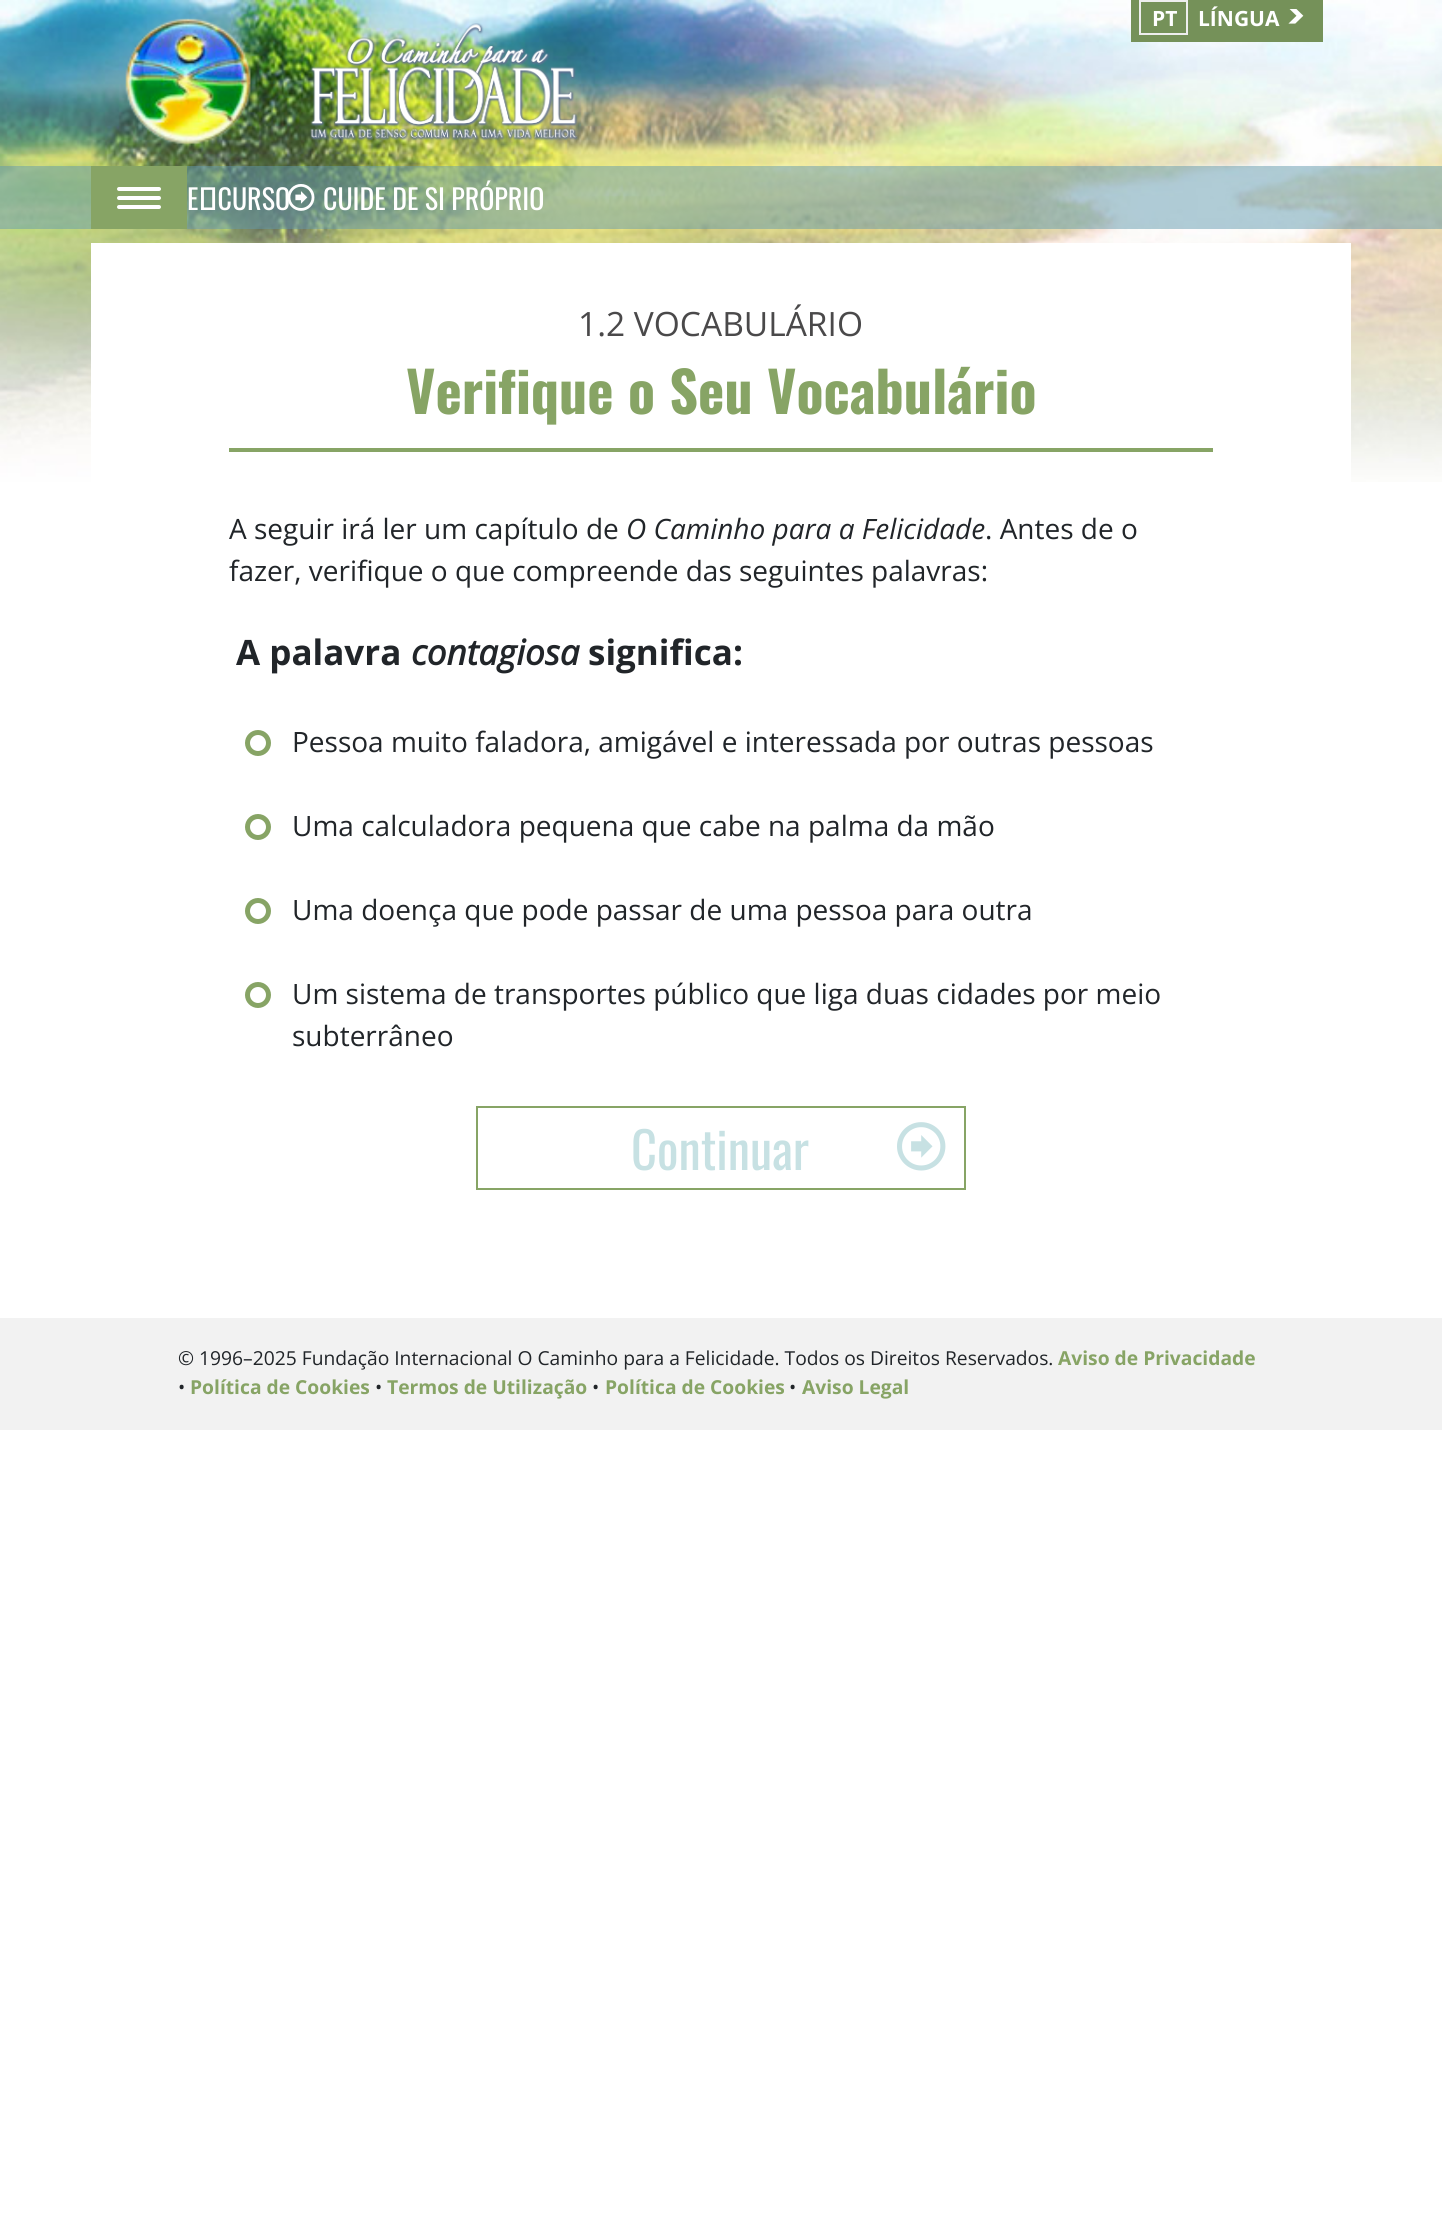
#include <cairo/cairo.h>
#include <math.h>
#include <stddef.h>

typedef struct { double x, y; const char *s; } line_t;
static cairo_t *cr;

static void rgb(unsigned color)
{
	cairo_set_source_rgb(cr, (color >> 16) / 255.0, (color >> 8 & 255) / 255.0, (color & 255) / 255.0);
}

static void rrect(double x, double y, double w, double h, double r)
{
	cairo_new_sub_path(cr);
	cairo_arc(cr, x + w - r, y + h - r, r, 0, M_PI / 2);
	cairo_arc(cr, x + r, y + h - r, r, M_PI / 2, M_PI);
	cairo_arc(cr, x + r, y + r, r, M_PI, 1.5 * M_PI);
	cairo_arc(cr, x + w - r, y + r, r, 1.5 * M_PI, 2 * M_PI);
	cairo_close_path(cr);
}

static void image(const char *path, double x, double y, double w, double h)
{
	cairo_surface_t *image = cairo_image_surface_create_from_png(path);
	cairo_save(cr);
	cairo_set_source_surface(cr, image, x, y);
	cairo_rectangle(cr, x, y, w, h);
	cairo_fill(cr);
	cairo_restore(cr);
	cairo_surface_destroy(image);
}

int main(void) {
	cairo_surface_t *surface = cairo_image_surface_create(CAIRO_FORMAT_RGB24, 1442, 2222);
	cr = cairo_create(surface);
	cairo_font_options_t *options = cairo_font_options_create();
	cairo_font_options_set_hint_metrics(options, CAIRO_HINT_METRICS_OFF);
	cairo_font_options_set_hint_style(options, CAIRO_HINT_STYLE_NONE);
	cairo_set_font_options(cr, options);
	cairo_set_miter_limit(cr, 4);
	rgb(0xffffff);
	cairo_paint(cr);
	image("img/1.png", 0, 0, 1442, 482);
	image("img/2.png", 125, 18, 126, 126);
	image("img/3.png", 309, 23, 270, 118);
	rgb(0x759159);
	cairo_rectangle(cr, 1131, 0, 192, 42);
	cairo_fill(cr);
	cairo_rectangle(cr, 1140, 1, 47, 33);
	rgb(0xeeeeee);
	cairo_stroke(cr);
	image("img/4.png", 1288, 9, 16, 15);
	cairo_set_source_rgba(cr, 0.384, 0.604, 0.682, 0.5);
	cairo_rectangle(cr, 0, 166, 1442, 63);
	cairo_fill(cr);
	rgb(0x87a465);
	cairo_rectangle(cr, 91, 166, 96, 63);
	cairo_fill(cr);
	rgb(0xffffff);
	rrect(117, 196, 44, 4, 2);
	cairo_fill(cr);
	rrect(117, 187, 44, 4, 2);
	cairo_fill(cr);
	rrect(117, 205, 44, 4, 2);
	cairo_fill(cr);
	cairo_rectangle(cr, 91, 243, 1260, 239);
	cairo_fill(cr);
	rgb(0x87a465);
	cairo_rectangle(cr, 229, 448, 984, 4);
	cairo_fill(cr);
	cairo_arc(cr, 258, 743, 10.5, 0, 2 * M_PI);
	cairo_set_line_width(cr, 5);
	cairo_stroke(cr);
	cairo_arc(cr, 258, 827, 10.5, 0, 2 * M_PI);
	cairo_stroke(cr);
	cairo_arc(cr, 258, 911, 10.5, 0, 2 * M_PI);
	cairo_stroke(cr);
	cairo_arc(cr, 258, 995, 10.5, 0, 2 * M_PI);
	cairo_stroke(cr);
	cairo_rectangle(cr, 477, 1107, 488, 82);
	cairo_set_line_width(cr, 2);
	cairo_stroke(cr);
	image("img/6.png", 897, 1122, 49, 49);
	rgb(0xf2f2f2);
	cairo_rectangle(cr, 0, 1318, 1442, 112);
	cairo_fill(cr);
	cairo_select_font_face(cr, "Open Sans", CAIRO_FONT_SLANT_NORMAL, CAIRO_FONT_WEIGHT_BOLD);
	cairo_set_font_size(cr, 21);
	rgb(0xffffff);
	cairo_move_to(cr, 1152, 26);
	cairo_show_text(cr, "PT");
	cairo_move_to(cr, 1198, 26);
	cairo_show_text(cr, "LÍNGUA");
	cairo_select_font_face(cr, "Oswald", CAIRO_FONT_SLANT_NORMAL, CAIRO_FONT_WEIGHT_NORMAL);
	cairo_set_font_size(cr, 28);
	cairo_move_to(cr, 187, 210);
	cairo_show_text(cr, "E‑CURSO");
	image("img/5.png", 288, 184, 27, 27);
	cairo_move_to(cr, 323, 210);
	cairo_show_text(cr, "CUIDE DE SI PRÓPRIO");
	cairo_select_font_face(cr, "Open Sans", CAIRO_FONT_SLANT_NORMAL, CAIRO_FONT_WEIGHT_NORMAL);
	cairo_set_font_size(cr, 33.5);
	rgb(0x4a494a);
	cairo_move_to(cr, 578, 336);
	cairo_show_text(cr, "1.2 VOCABULÁRIO");
	cairo_select_font_face(cr, "Oswald", CAIRO_FONT_SLANT_NORMAL, CAIRO_FONT_WEIGHT_BOLD);
	cairo_set_font_size(cr, 56);
	rgb(0x87a465);
	cairo_move_to(cr, 406, 414);
	cairo_show_text(cr, "Verifique o Seu Vocabulário");
	cairo_select_font_face(cr, "Open Sans", CAIRO_FONT_SLANT_NORMAL, CAIRO_FONT_WEIGHT_NORMAL);
	cairo_set_font_size(cr, 28);
	rgb(0x212529);
	cairo_move_to(cr, 229, 539);
	cairo_show_text(cr, "A seguir irá ler um capítulo de");
	cairo_select_font_face(cr, "Open Sans", CAIRO_FONT_SLANT_ITALIC, CAIRO_FONT_WEIGHT_NORMAL);
	cairo_move_to(cr, 626, 539);
	cairo_show_text(cr, "O Caminho para a Felicidade");
	cairo_select_font_face(cr, "Open Sans", CAIRO_FONT_SLANT_NORMAL, CAIRO_FONT_WEIGHT_NORMAL);
	cairo_move_to(cr, 985, 539);
	cairo_show_text(cr, ". Antes de o");
	cairo_move_to(cr, 229, 581);
	cairo_show_text(cr, "fazer, verifique o que compreende das seguintes palavras:");
	cairo_select_font_face(cr, "Open Sans", CAIRO_FONT_SLANT_NORMAL, CAIRO_FONT_WEIGHT_BOLD);
	cairo_set_font_size(cr, 35);
	cairo_move_to(cr, 236, 665);
	cairo_show_text(cr, "A palavra");
	cairo_select_font_face(cr, "Open Sans", CAIRO_FONT_SLANT_ITALIC, CAIRO_FONT_WEIGHT_BOLD);
	cairo_move_to(cr, 411, 665);
	cairo_show_text(cr, "contagiosa");
	cairo_select_font_face(cr, "Open Sans", CAIRO_FONT_SLANT_NORMAL, CAIRO_FONT_WEIGHT_BOLD);
	cairo_move_to(cr, 588, 665);
	cairo_show_text(cr, "significa:");
	cairo_select_font_face(cr, "Open Sans", CAIRO_FONT_SLANT_NORMAL, CAIRO_FONT_WEIGHT_NORMAL);
	cairo_set_font_size(cr, 28);
	{
		static const line_t items[] = {
			{292, 752, "Pessoa muito faladora, amigável e interessada por outras pessoas"},
			{292, 836, "Uma calculadora pequena que cabe na palma da mão"},
			{292, 920, "Uma doença que pode passar de uma pessoa para outra"},
			{292, 1004, "Um sistema de transportes público que liga duas cidades por meio"},
			{292, 1046, "subterrâneo"},
		};
		for (size_t i = 0; i < sizeof items / sizeof *items; i++) {
			cairo_move_to(cr, items[i].x, items[i].y);
			cairo_show_text(cr, items[i].s);
		}
	}
	cairo_select_font_face(cr, "Oswald", CAIRO_FONT_SLANT_NORMAL, CAIRO_FONT_WEIGHT_NORMAL);
	cairo_set_font_size(cr, 50.5);
	rgb(0xc7e1e3);
	cairo_move_to(cr, 631, 1170);
	cairo_show_text(cr, "Continuar");
	cairo_select_font_face(cr, "Open Sans", CAIRO_FONT_SLANT_NORMAL, CAIRO_FONT_WEIGHT_NORMAL);
	cairo_set_font_size(cr, 19.25);
	rgb(0x212529);
	cairo_move_to(cr, 178, 1365);
	cairo_show_text(cr, "© 1996–2025 Fundação Internacional O Caminho para a Felicidade. Todos os Direitos Reservados.");
	cairo_select_font_face(cr, "Open Sans", CAIRO_FONT_SLANT_NORMAL, CAIRO_FONT_WEIGHT_BOLD);
	rgb(0x87a465);
	cairo_move_to(cr, 1058, 1365);
	cairo_show_text(cr, "Aviso de Privacidade");
	cairo_select_font_face(cr, "Open Sans", CAIRO_FONT_SLANT_NORMAL, CAIRO_FONT_WEIGHT_NORMAL);
	rgb(0x212529);
	cairo_move_to(cr, 178, 1394);
	cairo_show_text(cr, "•");
	cairo_select_font_face(cr, "Open Sans", CAIRO_FONT_SLANT_NORMAL, CAIRO_FONT_WEIGHT_BOLD);
	rgb(0x87a465);
	cairo_move_to(cr, 190, 1394);
	cairo_show_text(cr, "Política de Cookies");
	cairo_select_font_face(cr, "Open Sans", CAIRO_FONT_SLANT_NORMAL, CAIRO_FONT_WEIGHT_NORMAL);
	rgb(0x212529);
	cairo_move_to(cr, 375, 1394);
	cairo_show_text(cr, "•");
	cairo_select_font_face(cr, "Open Sans", CAIRO_FONT_SLANT_NORMAL, CAIRO_FONT_WEIGHT_BOLD);
	rgb(0x87a465);
	cairo_move_to(cr, 387, 1394);
	cairo_show_text(cr, "Termos de Utilização");
	cairo_select_font_face(cr, "Open Sans", CAIRO_FONT_SLANT_NORMAL, CAIRO_FONT_WEIGHT_NORMAL);
	rgb(0x212529);
	cairo_move_to(cr, 592, 1394);
	cairo_show_text(cr, "•");
	cairo_select_font_face(cr, "Open Sans", CAIRO_FONT_SLANT_NORMAL, CAIRO_FONT_WEIGHT_BOLD);
	rgb(0x87a465);
	cairo_move_to(cr, 605, 1394);
	cairo_show_text(cr, "Política de Cookies");
	cairo_select_font_face(cr, "Open Sans", CAIRO_FONT_SLANT_NORMAL, CAIRO_FONT_WEIGHT_NORMAL);
	rgb(0x212529);
	cairo_move_to(cr, 789, 1394);
	cairo_show_text(cr, "•");
	cairo_select_font_face(cr, "Open Sans", CAIRO_FONT_SLANT_NORMAL, CAIRO_FONT_WEIGHT_BOLD);
	rgb(0x87a465);
	cairo_move_to(cr, 802, 1394);
	cairo_show_text(cr, "Aviso Legal");
	cairo_surface_write_to_png(surface, "page.png");
	cairo_font_options_destroy(options);
	cairo_destroy(cr);
	cairo_surface_destroy(surface);
	return 0;
}
